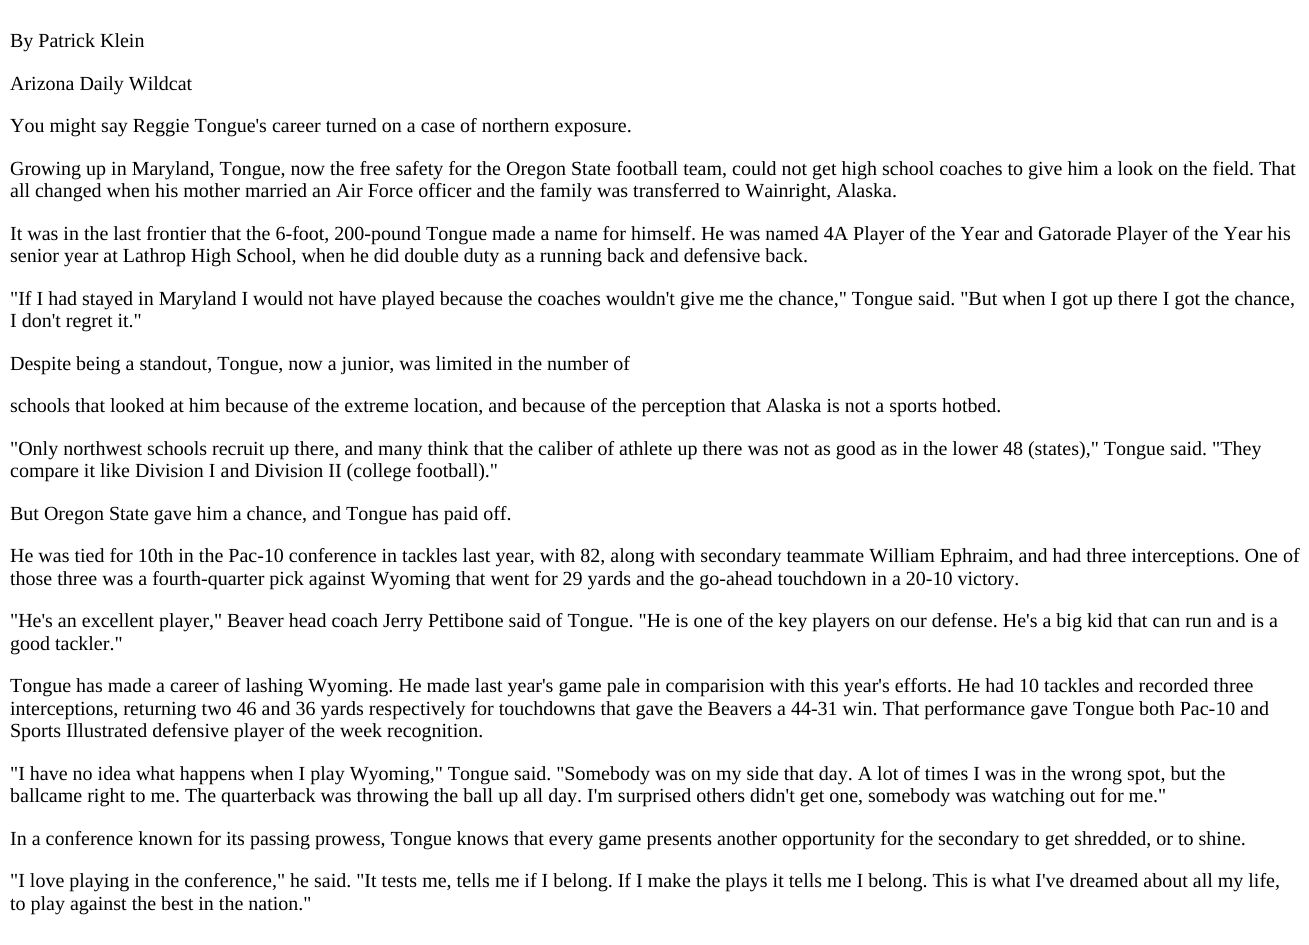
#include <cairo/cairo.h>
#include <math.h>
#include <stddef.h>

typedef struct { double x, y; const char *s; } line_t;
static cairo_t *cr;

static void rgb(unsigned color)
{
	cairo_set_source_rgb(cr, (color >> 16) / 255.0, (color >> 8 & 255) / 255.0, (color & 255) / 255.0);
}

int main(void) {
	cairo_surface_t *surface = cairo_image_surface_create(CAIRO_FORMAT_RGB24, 1309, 945);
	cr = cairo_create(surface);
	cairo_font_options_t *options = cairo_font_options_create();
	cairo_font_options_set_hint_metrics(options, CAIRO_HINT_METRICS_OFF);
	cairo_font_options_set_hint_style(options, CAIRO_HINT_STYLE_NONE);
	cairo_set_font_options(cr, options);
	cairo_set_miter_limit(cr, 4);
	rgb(0xffffff);
	cairo_paint(cr);
	cairo_select_font_face(cr, "Liberation Serif", CAIRO_FONT_SLANT_NORMAL, CAIRO_FONT_WEIGHT_NORMAL);
	cairo_set_font_size(cr, 20);
	rgb(0x000000);
	{
		static const line_t items[] = {
			{10, 47, "By Patrick Klein"},
			{10, 90, "Arizona Daily Wildcat"},
			{10, 132, "You might say Reggie Tongue's career turned on a case of northern exposure."},
			{10, 175, "Growing up in Maryland, Tongue, now the free safety for the Oregon State football team, could not get high school coaches to give him a look on the field. That"},
			{10, 197, "all changed when his mother married an Air Force officer and the family was transferred to Wainright, Alaska."},
			{10, 240, "It was in the last frontier that the 6-foot, 200-pound Tongue made a name for himself. He was named 4A Player of the Year and Gatorade Player of the Year his"},
			{10, 262, "senior year at Lathrop High School, when he did double duty as a running back and defensive back."},
			{10, 305, "\"If I had stayed in Maryland I would not have played because the coaches wouldn't give me the chance,\" Tongue said. \"But when I got up there I got the chance,"},
			{10, 327, "I don't regret it.\""},
			{10, 370, "Despite being a standout, Tongue, now a junior, was limited in the number of"},
			{10, 412, "schools that looked at him because of the extreme location, and because of the perception that Alaska is not a sports hotbed."},
			{10, 455, "\"Only northwest schools recruit up there, and many think that the caliber of athlete up there was not as good as in the lower 48 (states),\" Tongue said. \"They"},
			{10, 477, "compare it like Division I and Division II (college football).\""},
			{10, 520, "But Oregon State gave him a chance, and Tongue has paid off."},
			{10, 562, "He was tied for 10th in the Pac-10 conference in tackles last year, with 82, along with secondary teammate William Ephraim, and had three interceptions. One of"},
			{10, 585, "those three was a fourth-quarter pick against Wyoming that went for 29 yards and the go-ahead touchdown in a 20-10 victory."},
			{10, 627, "\"He's an excellent player,\" Beaver head coach Jerry Pettibone said of Tongue. \"He is one of the key players on our defense. He's a big kid that can run and is a"},
			{10, 650, "good tackler.\""},
			{10, 692, "Tongue has made a career of lashing Wyoming. He made last year's game pale in comparision with this year's efforts. He had 10 tackles and recorded three"},
			{10, 715, "interceptions, returning two 46 and 36 yards respectively for touchdowns that gave the Beavers a 44-31 win. That performance gave Tongue both Pac-10 and"},
			{10, 737, "Sports Illustrated defensive player of the week recognition."},
			{10, 780, "\"I have no idea what happens when I play Wyoming,\" Tongue said. \"Somebody was on my side that day. A lot of times I was in the wrong spot, but the"},
			{10, 802, "ballcame right to me. The quarterback was throwing the ball up all day. I'm surprised others didn't get one, somebody was watching out for me.\""},
			{10, 845, "In a conference known for its passing prowess, Tongue knows that every game presents another opportunity for the secondary to get shredded, or to shine."},
			{10, 887, "\"I love playing in the conference,\" he said. \"It tests me, tells me if I belong. If I make the plays it tells me I belong. This is what I've dreamed about all my life,"},
			{10, 910, "to play against the best in the nation.\""},
		};
		for (size_t i = 0; i < sizeof items / sizeof *items; i++) {
			cairo_move_to(cr, items[i].x, items[i].y);
			cairo_show_text(cr, items[i].s);
		}
	}
	cairo_surface_write_to_png(surface, "page.png");
	cairo_font_options_destroy(options);
	cairo_destroy(cr);
	cairo_surface_destroy(surface);
	return 0;
}
